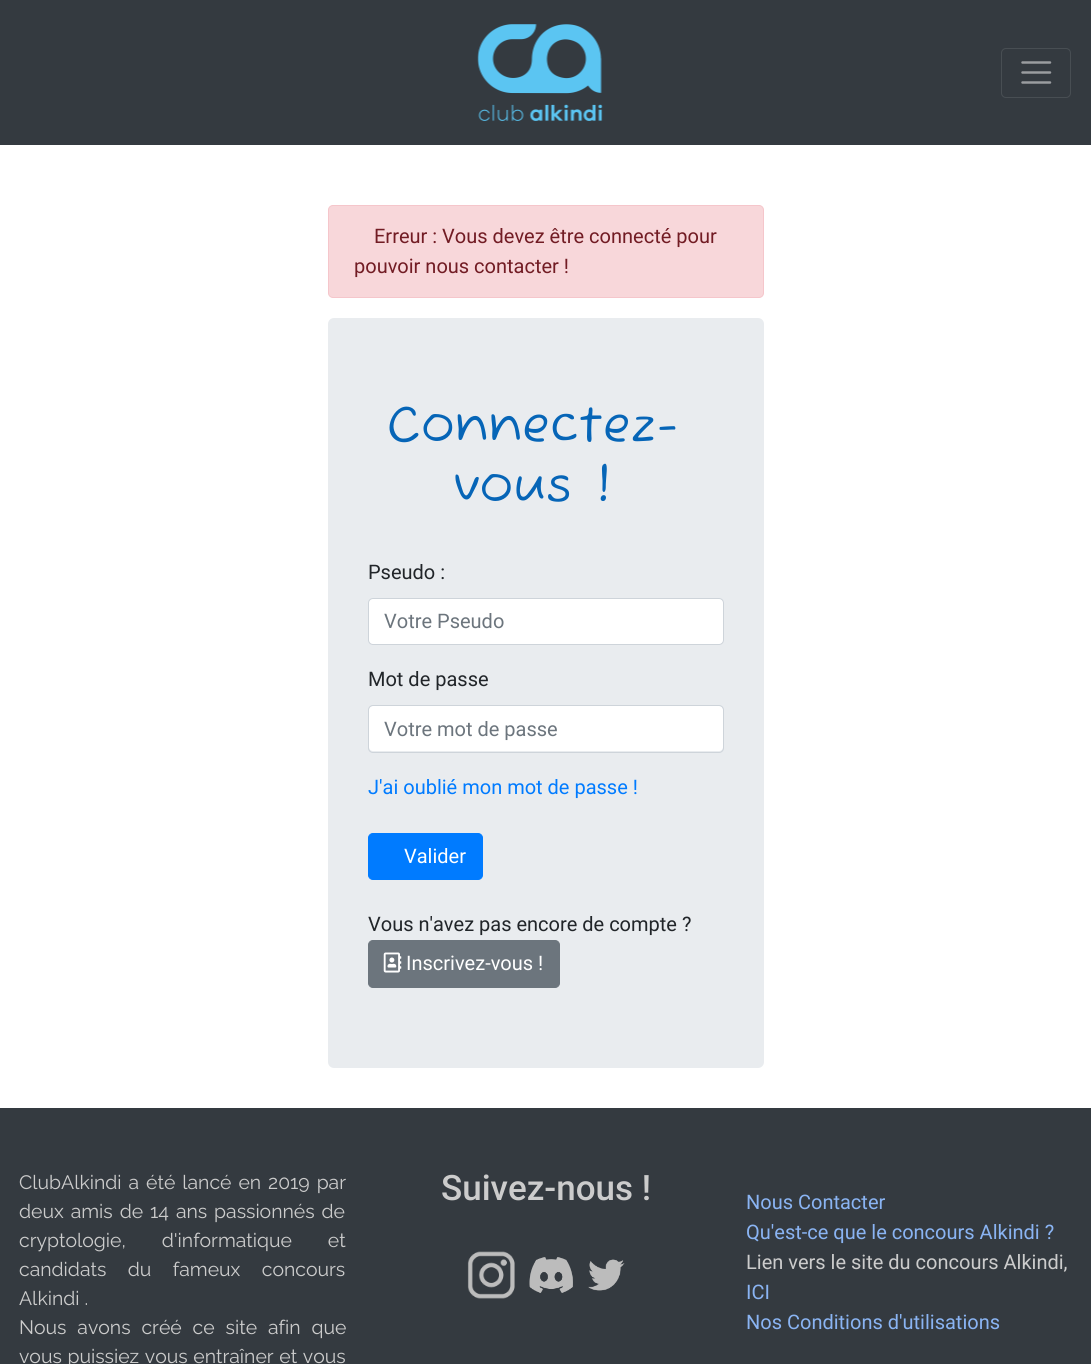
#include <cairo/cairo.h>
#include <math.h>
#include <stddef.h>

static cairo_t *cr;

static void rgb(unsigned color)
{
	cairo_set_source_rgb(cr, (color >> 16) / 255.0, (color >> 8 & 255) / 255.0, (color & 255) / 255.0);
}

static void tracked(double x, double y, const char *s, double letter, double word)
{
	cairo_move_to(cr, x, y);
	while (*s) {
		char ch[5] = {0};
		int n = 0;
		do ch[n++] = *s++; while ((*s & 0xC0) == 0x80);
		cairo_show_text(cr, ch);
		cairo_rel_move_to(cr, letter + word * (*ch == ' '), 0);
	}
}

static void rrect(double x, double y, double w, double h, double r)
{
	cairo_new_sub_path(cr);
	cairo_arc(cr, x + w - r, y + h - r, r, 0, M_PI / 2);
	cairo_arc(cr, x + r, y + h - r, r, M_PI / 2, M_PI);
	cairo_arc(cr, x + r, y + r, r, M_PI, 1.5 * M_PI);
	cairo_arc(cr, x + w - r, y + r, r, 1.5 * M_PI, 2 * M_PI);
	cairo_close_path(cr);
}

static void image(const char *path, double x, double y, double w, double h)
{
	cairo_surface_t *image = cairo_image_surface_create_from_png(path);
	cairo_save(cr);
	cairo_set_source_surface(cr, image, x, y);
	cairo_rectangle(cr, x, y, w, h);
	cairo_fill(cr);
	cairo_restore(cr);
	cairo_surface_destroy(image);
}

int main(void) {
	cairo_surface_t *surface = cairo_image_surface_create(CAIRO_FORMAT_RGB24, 1091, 1364);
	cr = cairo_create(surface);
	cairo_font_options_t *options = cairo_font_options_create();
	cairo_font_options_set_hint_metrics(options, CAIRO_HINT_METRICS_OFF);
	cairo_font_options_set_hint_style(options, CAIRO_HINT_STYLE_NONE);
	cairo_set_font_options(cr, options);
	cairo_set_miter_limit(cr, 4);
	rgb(0xffffff);
	cairo_paint(cr);
	rgb(0x343a40);
	cairo_rectangle(cr, 0, 0, 1091, 145);
	cairo_fill(cr);
	image("img/1.png", 477, 24, 126, 97);
	rrect(1001.5, 48.5, 69, 49, 4.5);
	rgb(0x484e53);
	cairo_set_line_width(cr, 1);
	cairo_stroke(cr);
	cairo_new_path(cr);
	cairo_move_to(cr, 1022.5, 62.5);
	cairo_line_to(cr, 1050, 62.5);
	cairo_move_to(cr, 1022.5, 72.5);
	cairo_line_to(cr, 1050, 72.5);
	cairo_move_to(cr, 1022.5, 82.5);
	cairo_line_to(cr, 1050, 82.5);
	rgb(0x9a9da0);
	cairo_set_line_width(cr, 2.5);
	cairo_set_line_cap(cr, CAIRO_LINE_CAP_ROUND);
	cairo_stroke(cr);
	rgb(0xf8d7da);
	rrect(328.5, 205.5, 435, 92, 4.5);
	cairo_fill_preserve(cr);
	rgb(0xf5c6cb);
	cairo_set_line_width(cr, 1);
	cairo_set_line_cap(cr, CAIRO_LINE_CAP_BUTT);
	cairo_stroke(cr);
	rgb(0xe9ecef);
	rrect(328, 318, 436, 750, 6);
	cairo_fill(cr);
	rgb(0xffffff);
	rrect(368.5, 598.5, 355, 46, 4.5);
	cairo_fill_preserve(cr);
	rgb(0xced4da);
	cairo_stroke(cr);
	rgb(0xffffff);
	rrect(369, 706, 354, 45, 4);
	cairo_fill(cr);
	rrect(368.5, 705.5, 355, 47, 4.5);
	rgb(0xced4da);
	cairo_stroke(cr);
	rgb(0x007bff);
	rrect(368.5, 833.5, 114, 46, 4.5);
	cairo_fill_preserve(cr);
	cairo_stroke(cr);
	rgb(0x6c757d);
	rrect(368.5, 940.5, 191, 47, 4.5);
	cairo_fill_preserve(cr);
	cairo_stroke(cr);
	image("img/2.png", 383, 952, 19, 21);
	rgb(0x343a40);
	cairo_rectangle(cr, 0, 1108, 1091, 256);
	cairo_fill(cr);
	image("img/3.png", 467, 1251, 48, 48);
	image("img/4.png", 529, 1257, 44, 36);
	image("img/5.png", 588, 1259, 37, 32);
	cairo_select_font_face(cr, "Roboto", CAIRO_FONT_SLANT_NORMAL, CAIRO_FONT_WEIGHT_NORMAL);
	cairo_set_font_size(cr, 20);
	rgb(0x721c24);
	cairo_move_to(cr, 374, 243);
	cairo_show_text(cr, "Erreur : Vous devez être connecté pour");
	cairo_move_to(cr, 354, 273);
	cairo_show_text(cr, "pouvoir nous contacter !");
	cairo_select_font_face(cr, "Fuzzy Bubbles", CAIRO_FONT_SLANT_NORMAL, CAIRO_FONT_WEIGHT_NORMAL);
	cairo_set_font_size(cr, 50);
	rgb(0x0665b7);
	cairo_move_to(cr, 387, 441);
	cairo_show_text(cr, "Connectez-");
	cairo_move_to(cr, 453, 501);
	cairo_show_text(cr, "vous !");
	cairo_select_font_face(cr, "Roboto", CAIRO_FONT_SLANT_NORMAL, CAIRO_FONT_WEIGHT_NORMAL);
	cairo_set_font_size(cr, 20);
	rgb(0x212529);
	cairo_move_to(cr, 368, 579);
	cairo_show_text(cr, "Pseudo :");
	rgb(0x6c757d);
	cairo_move_to(cr, 384, 628);
	cairo_show_text(cr, "Votre Pseudo");
	rgb(0x212529);
	cairo_move_to(cr, 368, 686);
	cairo_show_text(cr, "Mot de passe");
	rgb(0x6c757d);
	cairo_move_to(cr, 384, 736);
	cairo_show_text(cr, "Votre mot de passe");
	rgb(0x007bff);
	cairo_move_to(cr, 368, 794);
	cairo_show_text(cr, "J'ai oublié mon mot de passe !");
	rgb(0xffffff);
	cairo_move_to(cr, 404, 863);
	cairo_show_text(cr, "Valider");
	rgb(0x212529);
	cairo_move_to(cr, 368, 931);
	cairo_show_text(cr, "Vous n'avez pas encore de compte ?");
	rgb(0xffffff);
	cairo_move_to(cr, 406, 970);
	cairo_show_text(cr, "Inscrivez-vous !");
	cairo_select_font_face(cr, "Raleway", CAIRO_FONT_SLANT_NORMAL, CAIRO_FONT_WEIGHT_NORMAL);
	cairo_set_font_size(cr, 19.4);
	rgb(0xcccccc);
	tracked(19, 1189, "ClubAlkindi a été lancé en 2019 par", 0, 2);
	tracked(19, 1218, "deux amis de 14 ans passionnés de", 0, 2);
	tracked(19, 1247, "cryptologie, d'informatique et", 0, 31);
	tracked(19, 1276, "candidats du fameux concours", 0, 16.5);
	cairo_move_to(cr, 19, 1305);
	cairo_show_text(cr, "Alkindi .");
	tracked(19, 1334, "Nous avons créé ce site afin que", 0, 6);
	tracked(19, 1363, "vous puissiez vous entraîner et vous", 0, 0.75);
	cairo_select_font_face(cr, "Roboto Medium", CAIRO_FONT_SLANT_NORMAL, CAIRO_FONT_WEIGHT_NORMAL);
	cairo_set_font_size(cr, 35);
	cairo_move_to(cr, 441, 1200);
	cairo_show_text(cr, "Suivez-nous !");
	cairo_select_font_face(cr, "Roboto", CAIRO_FONT_SLANT_NORMAL, CAIRO_FONT_WEIGHT_NORMAL);
	cairo_set_font_size(cr, 20);
	rgb(0x8ab4f3);
	cairo_move_to(cr, 746, 1209);
	cairo_show_text(cr, "Nous Contacter");
	cairo_move_to(cr, 746, 1239);
	cairo_show_text(cr, "Qu'est-ce que le concours Alkindi ?");
	rgb(0xcccccc);
	cairo_move_to(cr, 746, 1269);
	cairo_show_text(cr, "Lien vers le site du concours Alkindi,");
	rgb(0x8ab4f3);
	cairo_move_to(cr, 746, 1299);
	cairo_show_text(cr, "ICI");
	cairo_move_to(cr, 746, 1329);
	cairo_show_text(cr, "Nos Conditions d'utilisations");
	cairo_surface_write_to_png(surface, "page.png");
	cairo_font_options_destroy(options);
	cairo_destroy(cr);
	cairo_surface_destroy(surface);
	return 0;
}
